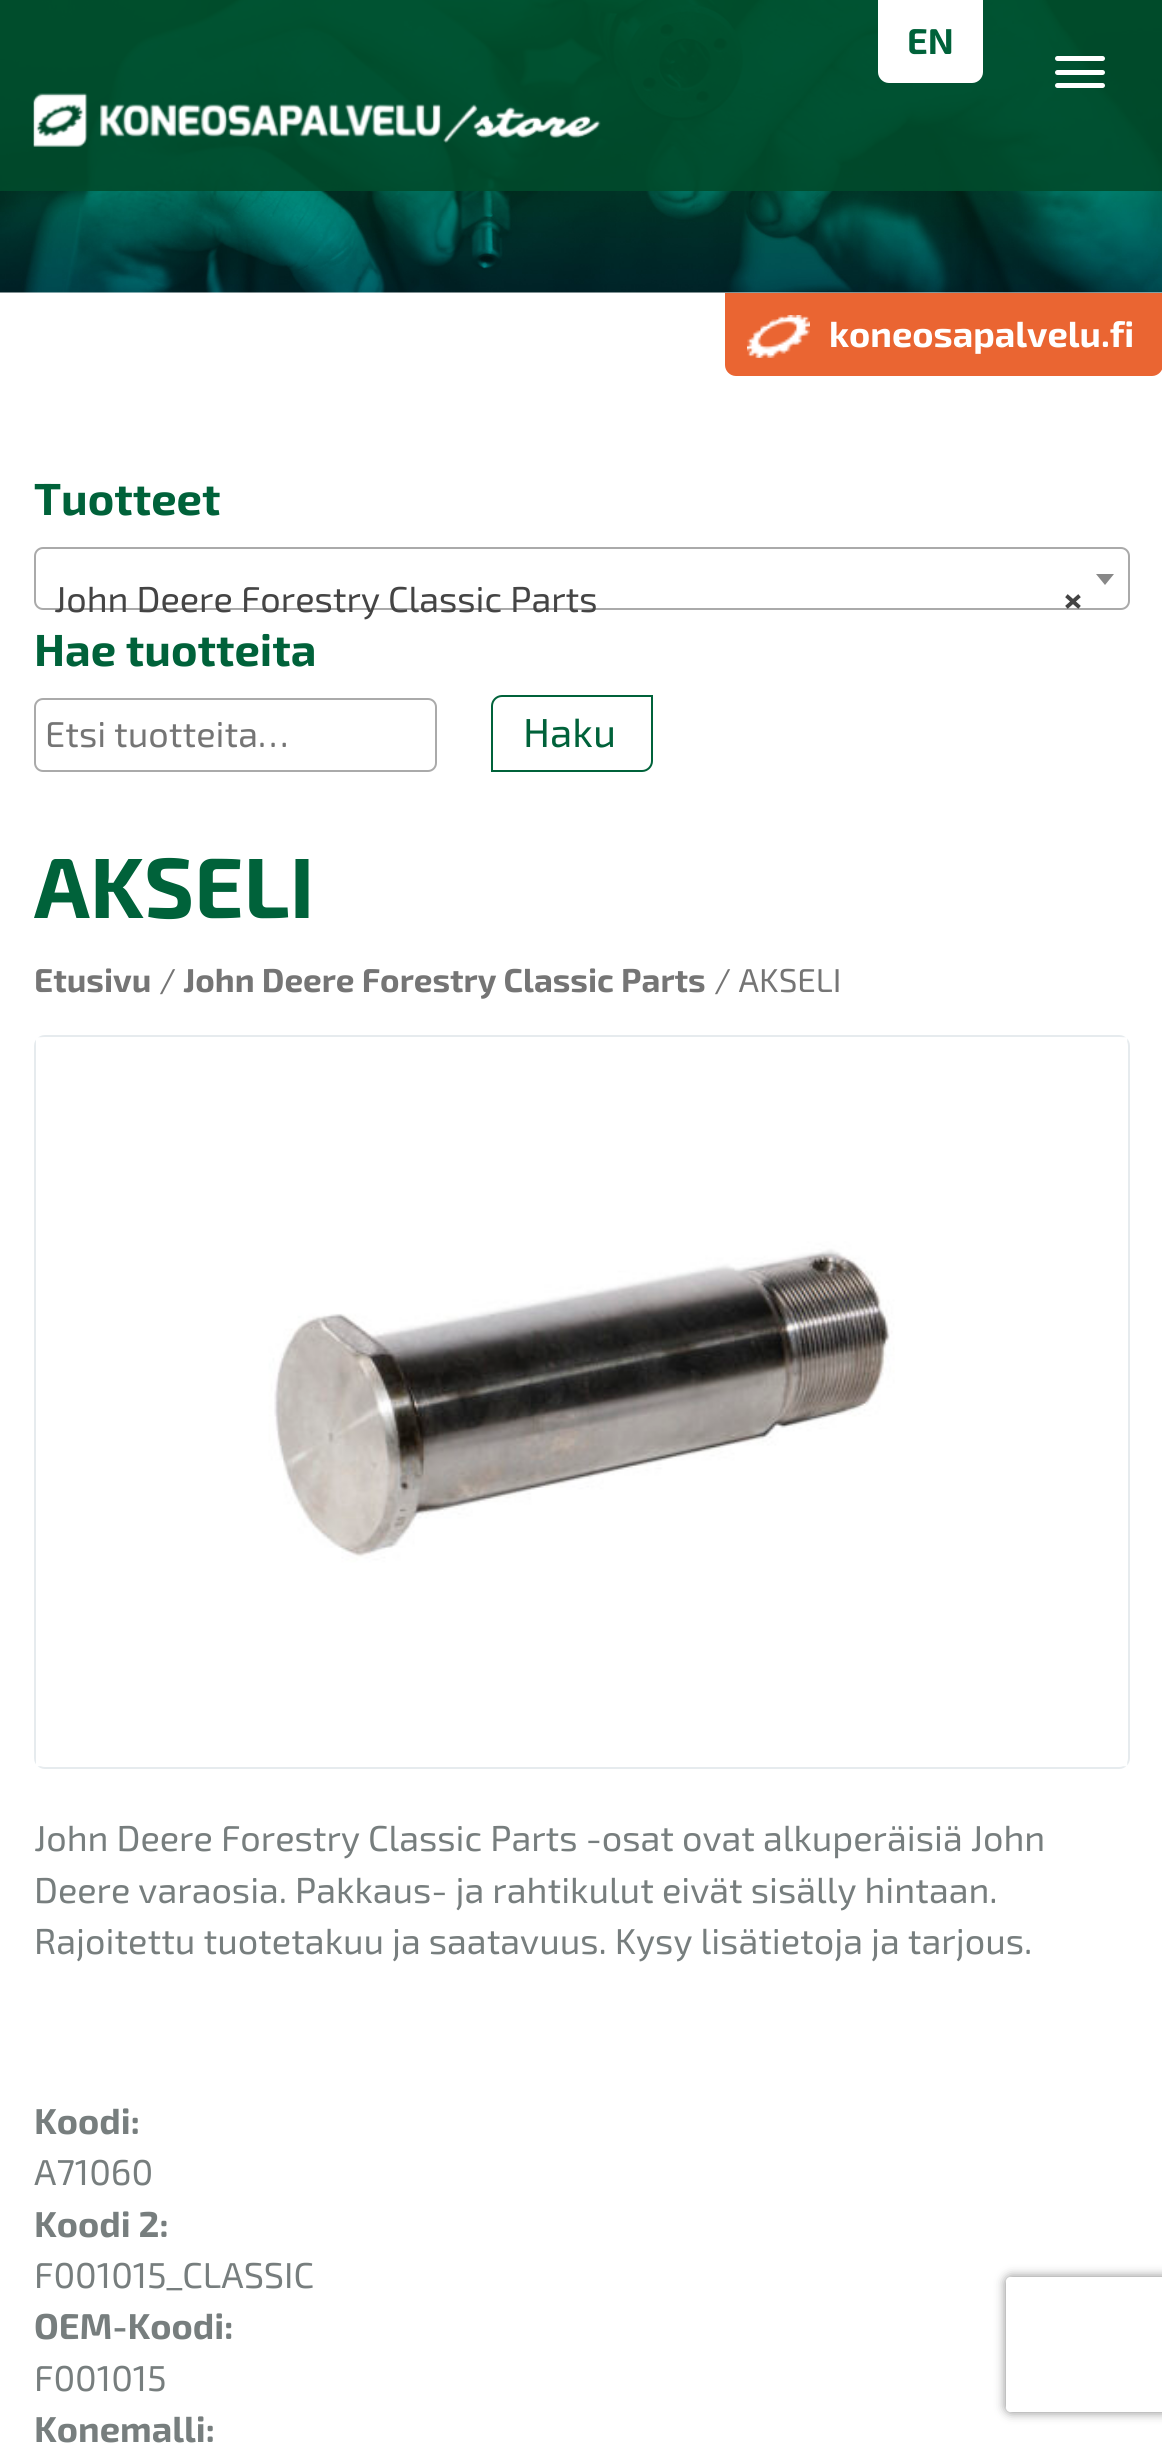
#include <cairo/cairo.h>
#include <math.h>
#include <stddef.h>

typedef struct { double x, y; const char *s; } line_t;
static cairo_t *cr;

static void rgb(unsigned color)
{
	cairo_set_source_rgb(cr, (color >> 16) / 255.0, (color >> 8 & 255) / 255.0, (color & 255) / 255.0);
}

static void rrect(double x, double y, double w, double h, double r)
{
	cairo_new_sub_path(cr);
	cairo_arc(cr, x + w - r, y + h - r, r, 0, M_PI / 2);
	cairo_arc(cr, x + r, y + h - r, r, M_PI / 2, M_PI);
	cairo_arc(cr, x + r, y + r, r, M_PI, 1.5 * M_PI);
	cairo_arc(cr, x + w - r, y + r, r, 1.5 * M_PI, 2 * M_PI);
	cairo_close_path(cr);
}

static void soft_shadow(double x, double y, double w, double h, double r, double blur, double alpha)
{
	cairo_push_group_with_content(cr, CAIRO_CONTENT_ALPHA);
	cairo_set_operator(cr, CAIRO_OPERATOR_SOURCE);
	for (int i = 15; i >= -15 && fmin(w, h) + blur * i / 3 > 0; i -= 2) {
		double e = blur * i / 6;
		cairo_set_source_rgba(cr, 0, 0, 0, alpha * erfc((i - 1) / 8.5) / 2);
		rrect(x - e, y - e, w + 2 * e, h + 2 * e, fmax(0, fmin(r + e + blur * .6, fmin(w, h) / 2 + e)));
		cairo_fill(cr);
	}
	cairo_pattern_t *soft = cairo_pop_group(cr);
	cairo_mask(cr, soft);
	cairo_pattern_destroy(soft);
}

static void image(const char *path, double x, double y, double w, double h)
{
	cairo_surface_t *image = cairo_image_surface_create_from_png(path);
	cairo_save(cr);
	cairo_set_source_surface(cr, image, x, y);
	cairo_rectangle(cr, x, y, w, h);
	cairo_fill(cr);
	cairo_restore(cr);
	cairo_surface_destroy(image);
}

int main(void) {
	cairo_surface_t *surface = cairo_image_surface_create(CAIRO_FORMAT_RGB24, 1162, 2443);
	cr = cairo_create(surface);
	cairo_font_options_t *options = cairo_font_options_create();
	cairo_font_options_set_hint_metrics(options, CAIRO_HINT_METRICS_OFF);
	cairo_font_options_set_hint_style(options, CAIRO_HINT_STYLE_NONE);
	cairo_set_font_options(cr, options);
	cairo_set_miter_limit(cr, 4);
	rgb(0xffffff);
	cairo_paint(cr);
	image("img/1.png", 0, 0, 1162, 293);
	cairo_set_source_rgba(cr, 0, 0.294, 0.173, 0.9);
	cairo_rectangle(cr, 0, 0, 1162, 191);
	cairo_fill(cr);
	rgb(0xffffff);
	cairo_new_path(cr);
	cairo_move_to(cr, 878, 0);
	cairo_line_to(cr, 983, 0);
	cairo_line_to(cr, 983, 72);
	cairo_curve_to(cr, 983, 78, 978, 83, 972, 83);
	cairo_line_to(cr, 889, 83);
	cairo_curve_to(cr, 883, 83, 878, 78, 878, 72);
	cairo_close_path(cr);
	cairo_fill(cr);
	rrect(1055, 56, 50, 5, 2.5);
	cairo_fill(cr);
	rrect(1055, 70, 50, 5, 2.5);
	cairo_fill(cr);
	rrect(1055, 83, 50, 5, 2.5);
	cairo_fill(cr);
	image("img/2.png", 33, 93, 568, 54);
	rgb(0xea6532);
	cairo_new_path(cr);
	cairo_move_to(cr, 725, 293);
	cairo_line_to(cr, 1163, 293);
	cairo_line_to(cr, 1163, 365);
	cairo_curve_to(cr, 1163, 371, 1158, 376, 1152, 376);
	cairo_line_to(cr, 736, 376);
	cairo_curve_to(cr, 730, 376, 725, 371, 725, 365);
	cairo_close_path(cr);
	cairo_fill(cr);
	image("img/3.png", 747, 315, 63, 43);
	rrect(35, 548, 1094, 61, 8);
	rgb(0xaaaaaa);
	cairo_stroke(cr);
	rgb(0x888888);
	cairo_new_path(cr);
	cairo_move_to(cr, 1096, 574);
	cairo_line_to(cr, 1114, 574);
	cairo_line_to(cr, 1105, 585);
	cairo_close_path(cr);
	cairo_fill(cr);
	rrect(35, 699, 401, 72, 8);
	rgb(0xaaaaaa);
	cairo_stroke(cr);
	cairo_new_path(cr);
	cairo_move_to(cr, 502, 696);
	cairo_line_to(cr, 652, 696);
	cairo_line_to(cr, 652, 761);
	cairo_curve_to(cr, 652, 766.5, 647.5, 771, 642, 771);
	cairo_line_to(cr, 492, 771);
	cairo_line_to(cr, 492, 706);
	cairo_curve_to(cr, 492, 700.5, 496.5, 696, 502, 696);
	cairo_close_path(cr);
	rgb(0x00623a);
	cairo_stroke(cr);
	rrect(35, 1036, 1094, 732, 10);
	rgb(0xe6ebee);
	cairo_stroke(cr);
	image("img/4.png", 36, 1037, 1092, 730);
	cairo_save(cr);
	cairo_set_fill_rule(cr, CAIRO_FILL_RULE_EVEN_ODD);
	cairo_new_path(cr);
	cairo_move_to(cr, 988, 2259);
	cairo_line_to(cr, 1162, 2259);
	cairo_line_to(cr, 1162, 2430);
	cairo_line_to(cr, 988, 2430);
	cairo_close_path(cr);
	cairo_move_to(cr, 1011, 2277);
	cairo_line_to(cr, 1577, 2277);
	cairo_curve_to(cr, 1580, 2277, 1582, 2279, 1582, 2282);
	cairo_line_to(cr, 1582, 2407);
	cairo_curve_to(cr, 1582, 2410, 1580, 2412, 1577, 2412);
	cairo_line_to(cr, 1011, 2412);
	cairo_curve_to(cr, 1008, 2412, 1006, 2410, 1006, 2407);
	cairo_line_to(cr, 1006, 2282);
	cairo_curve_to(cr, 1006, 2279, 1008, 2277, 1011, 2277);
	cairo_close_path(cr);
	cairo_clip(cr);
	rgb(0x808080);
	soft_shadow(1006, 2277, 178, 135, 5, 5.5, 1);
	cairo_restore(cr);
	cairo_select_font_face(cr, "Exo 2", CAIRO_FONT_SLANT_NORMAL, CAIRO_FONT_WEIGHT_BOLD);
	cairo_set_font_size(cr, 36);
	rgb(0x00623a);
	cairo_move_to(cr, 907, 54);
	cairo_show_text(cr, "EN");
	rgb(0xffffff);
	cairo_move_to(cr, 829, 347);
	cairo_show_text(cr, "koneosapalvelu.fi");
	cairo_set_font_size(cr, 45);
	rgb(0x00623a);
	cairo_move_to(cr, 34, 515);
	cairo_show_text(cr, "Tuotteet");
	cairo_select_font_face(cr, "Exo 2", CAIRO_FONT_SLANT_NORMAL, CAIRO_FONT_WEIGHT_NORMAL);
	cairo_set_font_size(cr, 36);
	rgb(0x444444);
	cairo_move_to(cr, 54, 612);
	cairo_show_text(cr, "John Deere Forestry Classic Parts");
	cairo_select_font_face(cr, "Exo 2", CAIRO_FONT_SLANT_NORMAL, CAIRO_FONT_WEIGHT_BOLD);
	cairo_move_to(cr, 1064, 612);
	cairo_show_text(cr, "×");
	cairo_set_font_size(cr, 45);
	rgb(0x00623a);
	cairo_move_to(cr, 34, 666);
	cairo_show_text(cr, "Hae tuotteita");
	cairo_select_font_face(cr, "Exo 2", CAIRO_FONT_SLANT_NORMAL, CAIRO_FONT_WEIGHT_NORMAL);
	cairo_set_font_size(cr, 36);
	rgb(0x757575);
	cairo_move_to(cr, 45, 747);
	cairo_show_text(cr, "Etsi tuotteita…");
	cairo_set_font_size(cr, 40.5);
	rgb(0x00623a);
	cairo_move_to(cr, 523, 747);
	cairo_show_text(cr, "Haku");
	cairo_select_font_face(cr, "Exo 2", CAIRO_FONT_SLANT_NORMAL, CAIRO_FONT_WEIGHT_BOLD);
	cairo_set_font_size(cr, 85.5);
	cairo_move_to(cr, 34, 918);
	cairo_show_text(cr, "AKSELI");
	cairo_set_font_size(cr, 33.1);
	rgb(0x757575);
	cairo_move_to(cr, 34, 992);
	cairo_show_text(cr, "Etusivu");
	cairo_select_font_face(cr, "Exo 2", CAIRO_FONT_SLANT_NORMAL, CAIRO_FONT_WEIGHT_NORMAL);
	cairo_move_to(cr, 159, 992);
	cairo_show_text(cr, "/");
	cairo_select_font_face(cr, "Exo 2", CAIRO_FONT_SLANT_NORMAL, CAIRO_FONT_WEIGHT_BOLD);
	cairo_move_to(cr, 183, 992);
	cairo_show_text(cr, "John Deere Forestry Classic Parts");
	cairo_select_font_face(cr, "Exo 2", CAIRO_FONT_SLANT_NORMAL, CAIRO_FONT_WEIGHT_NORMAL);
	cairo_move_to(cr, 714, 992);
	cairo_show_text(cr, "/ AKSELI");
	cairo_set_font_size(cr, 36);
	rgb(0x777e7e);
	{
		static const line_t items[] = {
			{34, 1851, "John Deere Forestry Classic Parts -osat ovat alkuperäisiä John"},
			{34, 1903, "Deere varaosia. Pakkaus- ja rahtikulut eivät sisälly hintaan."},
			{34, 1954, "Rajoitettu tuotetakuu ja saatavuus. Kysy lisätietoja ja tarjous."},
		};
		for (size_t i = 0; i < sizeof items / sizeof *items; i++) {
			cairo_move_to(cr, items[i].x, items[i].y);
			cairo_show_text(cr, items[i].s);
		}
	}
	cairo_select_font_face(cr, "Exo 2", CAIRO_FONT_SLANT_NORMAL, CAIRO_FONT_WEIGHT_BOLD);
	cairo_move_to(cr, 34, 2134);
	cairo_show_text(cr, "Koodi:");
	cairo_select_font_face(cr, "Exo 2", CAIRO_FONT_SLANT_NORMAL, CAIRO_FONT_WEIGHT_NORMAL);
	cairo_move_to(cr, 34, 2185);
	cairo_show_text(cr, "A71060");
	cairo_select_font_face(cr, "Exo 2", CAIRO_FONT_SLANT_NORMAL, CAIRO_FONT_WEIGHT_BOLD);
	cairo_move_to(cr, 34, 2237);
	cairo_show_text(cr, "Koodi 2:");
	cairo_select_font_face(cr, "Exo 2", CAIRO_FONT_SLANT_NORMAL, CAIRO_FONT_WEIGHT_NORMAL);
	cairo_move_to(cr, 34, 2288);
	cairo_show_text(cr, "F001015_CLASSIC");
	cairo_select_font_face(cr, "Exo 2", CAIRO_FONT_SLANT_NORMAL, CAIRO_FONT_WEIGHT_BOLD);
	cairo_move_to(cr, 34, 2339);
	cairo_show_text(cr, "OEM-Koodi:");
	cairo_select_font_face(cr, "Exo 2", CAIRO_FONT_SLANT_NORMAL, CAIRO_FONT_WEIGHT_NORMAL);
	cairo_move_to(cr, 34, 2391);
	cairo_show_text(cr, "F001015");
	cairo_select_font_face(cr, "Exo 2", CAIRO_FONT_SLANT_NORMAL, CAIRO_FONT_WEIGHT_BOLD);
	cairo_move_to(cr, 34, 2442);
	cairo_show_text(cr, "Konemalli:");
	cairo_surface_write_to_png(surface, "page.png");
	cairo_font_options_destroy(options);
	cairo_destroy(cr);
	cairo_surface_destroy(surface);
	return 0;
}
